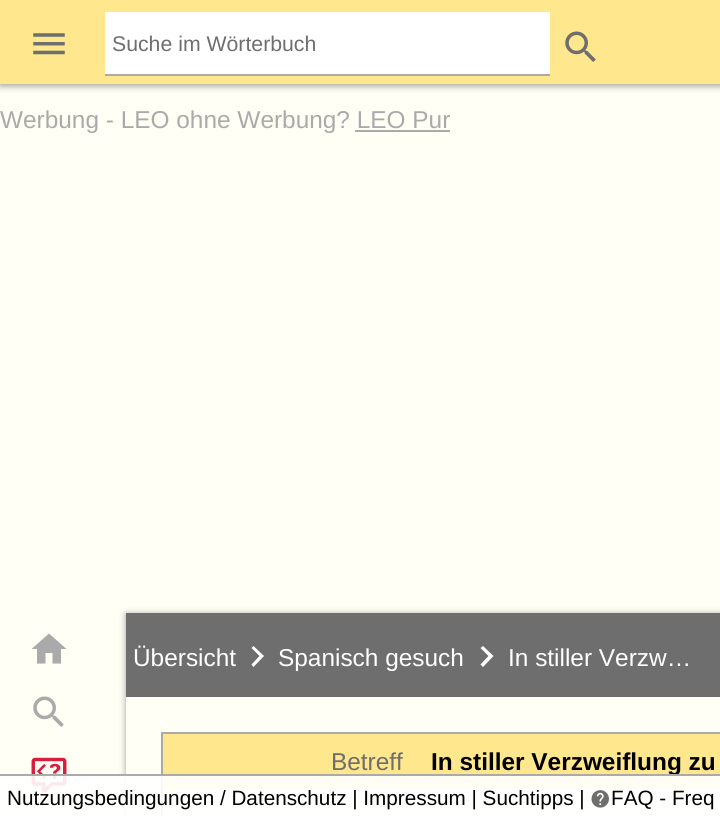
#include <cairo/cairo.h>
#include <math.h>
#include <stddef.h>

typedef struct { double x, y; const char *s; } line_t;
static cairo_t *cr;

static void rgb(unsigned color)
{
	cairo_set_source_rgb(cr, (color >> 16) / 255.0, (color >> 8 & 255) / 255.0, (color & 255) / 255.0);
}

static void rrect(double x, double y, double w, double h, double r)
{
	cairo_new_sub_path(cr);
	cairo_arc(cr, x + w - r, y + h - r, r, 0, M_PI / 2);
	cairo_arc(cr, x + r, y + h - r, r, M_PI / 2, M_PI);
	cairo_arc(cr, x + r, y + r, r, M_PI, 1.5 * M_PI);
	cairo_arc(cr, x + w - r, y + r, r, 1.5 * M_PI, 2 * M_PI);
	cairo_close_path(cr);
}

static void soft_shadow(double x, double y, double w, double h, double r, double blur, double alpha)
{
	cairo_push_group_with_content(cr, CAIRO_CONTENT_ALPHA);
	cairo_set_operator(cr, CAIRO_OPERATOR_SOURCE);
	for (int i = 15; i >= -15 && fmin(w, h) + blur * i / 3 > 0; i -= 2) {
		double e = blur * i / 6;
		cairo_set_source_rgba(cr, 0, 0, 0, alpha * erfc((i - 1) / 8.5) / 2);
		rrect(x - e, y - e, w + 2 * e, h + 2 * e, fmax(0, fmin(r + e + blur * .6, fmin(w, h) / 2 + e)));
		cairo_fill(cr);
	}
	cairo_pattern_t *soft = cairo_pop_group(cr);
	cairo_mask(cr, soft);
	cairo_pattern_destroy(soft);
}

static void image(const char *path, double x, double y, double w, double h)
{
	cairo_surface_t *image = cairo_image_surface_create_from_png(path);
	cairo_save(cr);
	cairo_set_source_surface(cr, image, x, y);
	cairo_rectangle(cr, x, y, w, h);
	cairo_fill(cr);
	cairo_restore(cr);
	cairo_surface_destroy(image);
}

int main(void) {
	cairo_surface_t *surface = cairo_image_surface_create(CAIRO_FORMAT_RGB24, 720, 816);
	cr = cairo_create(surface);
	cairo_font_options_t *options = cairo_font_options_create();
	cairo_font_options_set_hint_metrics(options, CAIRO_HINT_METRICS_OFF);
	cairo_font_options_set_hint_style(options, CAIRO_HINT_STYLE_NONE);
	cairo_set_font_options(cr, options);
	cairo_set_miter_limit(cr, 4);
	rgb(0xfffff5);
	cairo_paint(cr);
	rgb(0x000000);
	soft_shadow(0, 2, 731, 84, 0, 3.5, 0.37);
	rgb(0xffe78d);
	cairo_rectangle(cr, 0, 0, 720, 84);
	cairo_fill(cr);
	image("img/1.png", 33, 33, 32, 22);
	rgb(0xffffff);
	cairo_rectangle(cr, 105, 12, 445, 62);
	cairo_fill(cr);
	rgb(0xaaaaaa);
	cairo_rectangle(cr, 105, 74, 445, 2);
	cairo_fill(cr);
	image("img/2.png", 565, 31, 31, 31);
	cairo_rectangle(cr, 355, 130, 95, 2);
	cairo_fill(cr);
	cairo_new_path(cr);
	cairo_move_to(cr, 45.5, 663.5);
	cairo_line_to(cr, 37, 663.5);
	cairo_line_to(cr, 37, 649);
	cairo_line_to(cr, 31.5, 649);
	cairo_line_to(cr, 49, 633.5);
	cairo_line_to(cr, 66.5, 649);
	cairo_line_to(cr, 61, 649);
	cairo_line_to(cr, 61, 663.5);
	cairo_line_to(cr, 52.5, 663.5);
	cairo_line_to(cr, 52.5, 653);
	cairo_line_to(cr, 45.5, 653);
	cairo_close_path(cr);
	cairo_fill(cr);
	image("img/3.png", 33, 696, 31, 31);
	image("img/4.png", 31, 757, 36, 36);
	cairo_save(cr);
	cairo_set_fill_rule(cr, CAIRO_FILL_RULE_EVEN_ODD);
	cairo_new_path(cr);
	cairo_move_to(cr, 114, 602);
	cairo_line_to(cr, 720, 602);
	cairo_line_to(cr, 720, 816);
	cairo_line_to(cr, 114, 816);
	cairo_close_path(cr);
	cairo_move_to(cr, 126, 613);
	cairo_line_to(cr, 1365, 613);
	cairo_line_to(cr, 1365, 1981);
	cairo_line_to(cr, 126, 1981);
	cairo_close_path(cr);
	cairo_clip(cr);
	rgb(0x000000);
	soft_shadow(126, 614, 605, 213, 0, 3.5, 0.37);
	cairo_restore(cr);
	rgb(0x6e6e6e);
	cairo_rectangle(cr, 126, 613, 594, 84);
	cairo_fill(cr);
	rgb(0xffffff);
	cairo_new_path(cr);
	cairo_move_to(cr, 251.5, 664.5);
	cairo_line_to(cr, 259.5, 656);
	cairo_line_to(cr, 251.5, 648);
	cairo_line_to(cr, 253.5, 646);
	cairo_line_to(cr, 264, 656);
	cairo_line_to(cr, 253.5, 667);
	cairo_close_path(cr);
	cairo_fill(cr);
	cairo_new_path(cr);
	cairo_move_to(cr, 480.5, 664.5);
	cairo_line_to(cr, 488.5, 656);
	cairo_line_to(cr, 480.5, 648);
	cairo_line_to(cr, 483, 646);
	cairo_line_to(cr, 493.5, 656);
	cairo_line_to(cr, 483, 667);
	cairo_close_path(cr);
	cairo_fill(cr);
	rgb(0xaaaaaa);
	cairo_rectangle(cr, 161, 732, 559, 2);
	cairo_fill(cr);
	cairo_rectangle(cr, 161, 732, 2, 84);
	cairo_fill(cr);
	rgb(0xffe78d);
	cairo_rectangle(cr, 163, 734, 557, 55);
	cairo_fill(cr);
	cairo_set_source_rgba(cr, 1, 1, 1, 0.9);
	cairo_rectangle(cr, 0, 776, 720, 40);
	cairo_fill(cr);
	image("img/5.png", 591, 790, 18, 18);
	cairo_select_font_face(cr, "Liberation Sans", CAIRO_FONT_SLANT_NORMAL, CAIRO_FONT_WEIGHT_NORMAL);
	cairo_set_font_size(cr, 21.25);
	rgb(0x6e6e6e);
	cairo_move_to(cr, 112, 51);
	cairo_show_text(cr, "Suche im Wörterbuch");
	cairo_set_font_size(cr, 24.4);
	rgb(0xaaaaaa);
	cairo_move_to(cr, 0, 128);
	cairo_show_text(cr, "Werbung - LEO ohne Werbung? LEO Pur");
	rgb(0xffffff);
	{
		static const line_t items[] = {
			{133, 666, "Übersicht"},
			{278, 666, "Spanisch gesuch"},
			{508, 666, "In stiller Verzw…"},
		};
		for (size_t i = 0; i < sizeof items / sizeof *items; i++) {
			cairo_move_to(cr, items[i].x, items[i].y);
			cairo_show_text(cr, items[i].s);
		}
	}
	rgb(0x6e6e6e);
	cairo_move_to(cr, 331, 770);
	cairo_show_text(cr, "Betreff");
	cairo_select_font_face(cr, "Liberation Sans", CAIRO_FONT_SLANT_NORMAL, CAIRO_FONT_WEIGHT_BOLD);
	rgb(0x000000);
	cairo_move_to(cr, 431, 770);
	cairo_show_text(cr, "In stiller Verzweiflung zu");
	rgb(0xaaaaaa);
	cairo_rectangle(cr, 0, 774, 720, 2);
	cairo_fill(cr);
	cairo_select_font_face(cr, "Liberation Sans", CAIRO_FONT_SLANT_NORMAL, CAIRO_FONT_WEIGHT_NORMAL);
	cairo_set_font_size(cr, 20.7);
	rgb(0x000000);
	cairo_move_to(cr, 7, 805);
	cairo_show_text(cr, "Nutzungsbedingungen / Datenschutz | Impressum | Suchtipps |");
	cairo_move_to(cr, 611, 805);
	cairo_show_text(cr, "FAQ - Freq");
	cairo_surface_write_to_png(surface, "page.png");
	cairo_font_options_destroy(options);
	cairo_destroy(cr);
	cairo_surface_destroy(surface);
	return 0;
}
